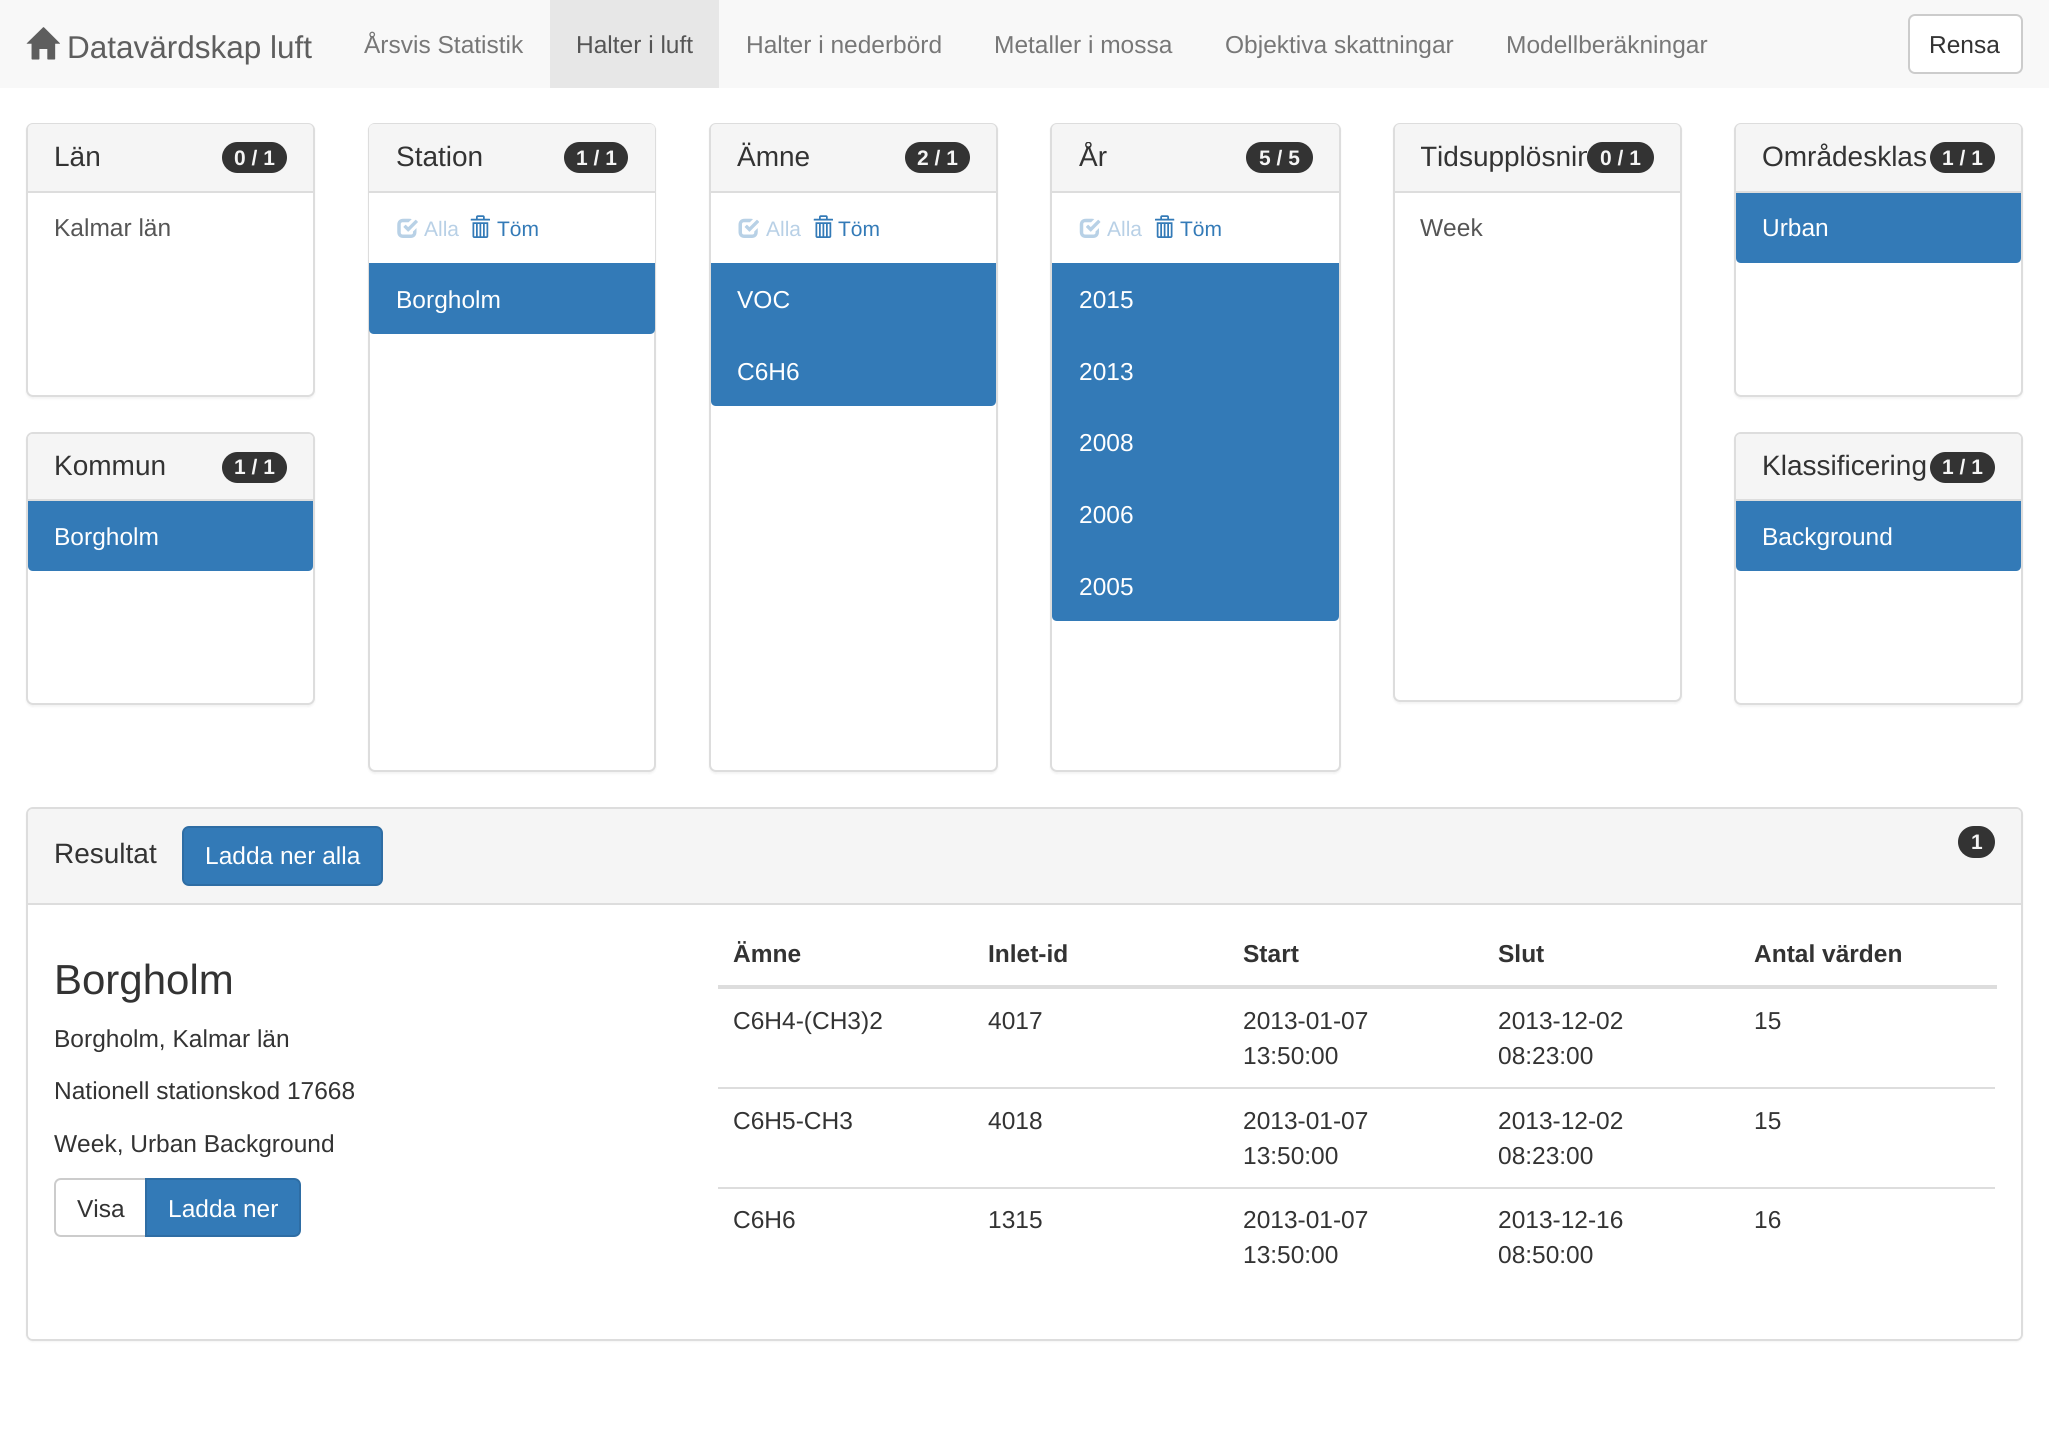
#include <cairo/cairo.h>
#include <math.h>
#include <stddef.h>

typedef struct { double x, y; const char *s; } line_t;
typedef struct { double x, y, w, h; unsigned color; } box_t;
static cairo_t *cr;

static void rgb(unsigned color)
{
	cairo_set_source_rgb(cr, (color >> 16) / 255.0, (color >> 8 & 255) / 255.0, (color & 255) / 255.0);
}

static void rrect(double x, double y, double w, double h, double r)
{
	cairo_new_sub_path(cr);
	cairo_arc(cr, x + w - r, y + h - r, r, 0, M_PI / 2);
	cairo_arc(cr, x + r, y + h - r, r, M_PI / 2, M_PI);
	cairo_arc(cr, x + r, y + r, r, M_PI, 1.5 * M_PI);
	cairo_arc(cr, x + w - r, y + r, r, 1.5 * M_PI, 2 * M_PI);
	cairo_close_path(cr);
}

static void soft_shadow(double x, double y, double w, double h, double r, double blur, double alpha)
{
	cairo_push_group_with_content(cr, CAIRO_CONTENT_ALPHA);
	cairo_set_operator(cr, CAIRO_OPERATOR_SOURCE);
	for (int i = 15; i >= -15 && fmin(w, h) + blur * i / 3 > 0; i -= 2) {
		double e = blur * i / 6;
		cairo_set_source_rgba(cr, 0, 0, 0, alpha * erfc((i - 1) / 8.5) / 2);
		rrect(x - e, y - e, w + 2 * e, h + 2 * e, fmax(0, fmin(r + e + blur * .6, fmin(w, h) / 2 + e)));
		cairo_fill(cr);
	}
	cairo_pattern_t *soft = cairo_pop_group(cr);
	cairo_mask(cr, soft);
	cairo_pattern_destroy(soft);
}

static void image(const char *path, double x, double y, double w, double h)
{
	cairo_surface_t *image = cairo_image_surface_create_from_png(path);
	cairo_save(cr);
	cairo_set_source_surface(cr, image, x, y);
	cairo_rectangle(cr, x, y, w, h);
	cairo_fill(cr);
	cairo_restore(cr);
	cairo_surface_destroy(image);
}

int main(void) {
	cairo_surface_t *surface = cairo_image_surface_create(CAIRO_FORMAT_RGB24, 2049, 1448);
	cr = cairo_create(surface);
	cairo_font_options_t *options = cairo_font_options_create();
	cairo_font_options_set_hint_metrics(options, CAIRO_HINT_METRICS_OFF);
	cairo_font_options_set_hint_style(options, CAIRO_HINT_STYLE_NONE);
	cairo_set_font_options(cr, options);
	cairo_set_miter_limit(cr, 4);
	rgb(0xffffff);
	cairo_paint(cr);
	rgb(0xf8f8f8);
	cairo_rectangle(cr, 0, 0, 2049, 88);
	cairo_fill(cr);
	image("img/1.png", 26, 27, 34, 33);
	rgb(0xe7e7e7);
	cairo_rectangle(cr, 550, 0, 169, 88);
	cairo_fill(cr);
	rgb(0xffffff);
	rrect(1909, 15, 113, 58, 6);
	cairo_fill_preserve(cr);
	rgb(0xcccccc);
	cairo_stroke(cr);
	rgb(0x000000);
	soft_shadow(26, 124, 289, 275, 7, 1, 0.05);
	rgb(0xffffff);
	rrect(27, 124, 287, 272, 6);
	cairo_fill_preserve(cr);
	rgb(0xdddddd);
	cairo_stroke(cr);
	rgb(0xf5f5f5);
	cairo_new_path(cr);
	cairo_move_to(cr, 33, 124);
	cairo_line_to(cr, 308, 124);
	cairo_curve_to(cr, 311, 124, 313, 126, 313, 129);
	cairo_line_to(cr, 313, 193);
	cairo_line_to(cr, 28, 193);
	cairo_line_to(cr, 28, 129);
	cairo_curve_to(cr, 28, 126, 30, 124, 33, 124);
	cairo_close_path(cr);
	cairo_fill(cr);
	rgb(0xdddddd);
	cairo_rectangle(cr, 28, 191, 285, 2);
	cairo_fill(cr);
	rgb(0x333333);
	rrect(222, 142, 65, 31, 15.5);
	cairo_fill(cr);
	rgb(0x000000);
	soft_shadow(26, 434, 289, 273, 7, 1, 0.05);
	rgb(0xffffff);
	rrect(27, 433, 287, 271, 6);
	cairo_fill_preserve(cr);
	rgb(0xdddddd);
	cairo_stroke(cr);
	rgb(0xf5f5f5);
	cairo_new_path(cr);
	cairo_move_to(cr, 33, 434);
	cairo_line_to(cr, 308, 434);
	cairo_curve_to(cr, 311, 434, 313, 436, 313, 439);
	cairo_line_to(cr, 313, 501);
	cairo_line_to(cr, 28, 501);
	cairo_line_to(cr, 28, 439);
	cairo_curve_to(cr, 28, 436, 30, 434, 33, 434);
	cairo_close_path(cr);
	cairo_fill(cr);
	rgb(0xdddddd);
	cairo_rectangle(cr, 28, 499, 285, 2);
	cairo_fill(cr);
	rgb(0x333333);
	rrect(222, 452, 65, 31, 15.5);
	cairo_fill(cr);
	rgb(0x337ab7);
	cairo_new_path(cr);
	cairo_move_to(cr, 28, 501);
	cairo_line_to(cr, 313, 501);
	cairo_line_to(cr, 313, 566);
	cairo_curve_to(cr, 313, 569, 311, 571, 308, 571);
	cairo_line_to(cr, 33, 571);
	cairo_curve_to(cr, 30, 571, 28, 569, 28, 566);
	cairo_close_path(cr);
	cairo_fill(cr);
	rgb(0x000000);
	soft_shadow(368, 124, 288, 650, 7, 1, 0.05);
	rgb(0xffffff);
	rrect(369, 124, 286, 647, 6);
	cairo_fill_preserve(cr);
	rgb(0xdddddd);
	cairo_stroke(cr);
	rgb(0xf5f5f5);
	cairo_new_path(cr);
	cairo_move_to(cr, 374, 124);
	cairo_line_to(cr, 650, 124);
	cairo_curve_to(cr, 653, 124, 655, 126, 655, 129);
	cairo_line_to(cr, 655, 193);
	cairo_line_to(cr, 369, 193);
	cairo_line_to(cr, 369, 129);
	cairo_curve_to(cr, 369, 126, 371, 124, 374, 124);
	cairo_close_path(cr);
	cairo_fill(cr);
	rgb(0xdddddd);
	cairo_rectangle(cr, 369, 191, 286, 2);
	cairo_fill(cr);
	rgb(0x333333);
	rrect(564, 142, 64, 31, 15.5);
	cairo_fill(cr);
	rgb(0xffffff);
	cairo_rectangle(cr, 369, 193, 286, 70);
	cairo_fill(cr);
	image("img/2.png", 397, 218, 21, 20);
	image("img/3.png", 470, 215, 20, 23);
	rgb(0x337ab7);
	cairo_new_path(cr);
	cairo_move_to(cr, 369, 263);
	cairo_line_to(cr, 655, 263);
	cairo_line_to(cr, 655, 329);
	cairo_curve_to(cr, 655, 332, 653, 334, 650, 334);
	cairo_line_to(cr, 374, 334);
	cairo_curve_to(cr, 371, 334, 369, 332, 369, 329);
	cairo_close_path(cr);
	cairo_fill(cr);
	rgb(0x000000);
	soft_shadow(709, 124, 289, 650, 7, 1, 0.05);
	rgb(0xffffff);
	rrect(710, 124, 287, 647, 6);
	cairo_fill_preserve(cr);
	rgb(0xdddddd);
	cairo_stroke(cr);
	rgb(0xf5f5f5);
	cairo_new_path(cr);
	cairo_move_to(cr, 716, 124);
	cairo_line_to(cr, 991, 124);
	cairo_curve_to(cr, 994, 124, 996, 126, 996, 129);
	cairo_line_to(cr, 996, 193);
	cairo_line_to(cr, 711, 193);
	cairo_line_to(cr, 711, 129);
	cairo_curve_to(cr, 711, 126, 713, 124, 716, 124);
	cairo_close_path(cr);
	cairo_fill(cr);
	rgb(0xdddddd);
	cairo_rectangle(cr, 711, 191, 285, 2);
	cairo_fill(cr);
	rgb(0x333333);
	rrect(905, 142, 65, 31, 15.5);
	cairo_fill(cr);
	image("img/4.png", 738, 218, 21, 20);
	image("img/3.png", 813, 215, 20, 23);
	rgb(0x337ab7);
	cairo_rectangle(cr, 711, 263, 285, 71);
	cairo_fill(cr);
	cairo_new_path(cr);
	cairo_move_to(cr, 711, 334);
	cairo_line_to(cr, 996, 334);
	cairo_line_to(cr, 996, 401);
	cairo_curve_to(cr, 996, 404, 994, 406, 991, 406);
	cairo_line_to(cr, 716, 406);
	cairo_curve_to(cr, 713, 406, 711, 404, 711, 401);
	cairo_close_path(cr);
	cairo_fill(cr);
	rgb(0x000000);
	soft_shadow(1050, 124, 291, 650, 7, 1, 0.05);
	rgb(0xffffff);
	rrect(1051, 124, 289, 647, 6);
	cairo_fill_preserve(cr);
	rgb(0xdddddd);
	cairo_stroke(cr);
	rgb(0xf5f5f5);
	cairo_new_path(cr);
	cairo_move_to(cr, 1057, 124);
	cairo_line_to(cr, 1334, 124);
	cairo_curve_to(cr, 1337, 124, 1339, 126, 1339, 129);
	cairo_line_to(cr, 1339, 193);
	cairo_line_to(cr, 1052, 193);
	cairo_line_to(cr, 1052, 129);
	cairo_curve_to(cr, 1052, 126, 1054, 124, 1057, 124);
	cairo_close_path(cr);
	cairo_fill(cr);
	rgb(0xdddddd);
	cairo_rectangle(cr, 1052, 191, 287, 2);
	cairo_fill(cr);
	rgb(0x333333);
	rrect(1246, 142, 67, 31, 15.5);
	cairo_fill(cr);
	image("img/5.png", 1079, 218, 22, 20);
	image("img/6.png", 1155, 215, 20, 23);
	rgb(0x337ab7);
	cairo_rectangle(cr, 1052, 263, 287, 287);
	cairo_fill(cr);
	cairo_new_path(cr);
	cairo_move_to(cr, 1052, 550);
	cairo_line_to(cr, 1339, 550);
	cairo_line_to(cr, 1339, 616);
	cairo_curve_to(cr, 1339, 619, 1337, 621, 1334, 621);
	cairo_line_to(cr, 1057, 621);
	cairo_curve_to(cr, 1054, 621, 1052, 619, 1052, 616);
	cairo_close_path(cr);
	cairo_fill(cr);
	rgb(0x000000);
	soft_shadow(1393, 124, 289, 580, 7, 1, 0.05);
	rgb(0xffffff);
	rrect(1394, 124, 287, 577, 6);
	cairo_fill_preserve(cr);
	rgb(0xdddddd);
	cairo_stroke(cr);
	rgb(0xf5f5f5);
	cairo_new_path(cr);
	cairo_move_to(cr, 1400, 124);
	cairo_line_to(cr, 1675, 124);
	cairo_curve_to(cr, 1678, 124, 1680, 126, 1680, 129);
	cairo_line_to(cr, 1680, 193);
	cairo_line_to(cr, 1395, 193);
	cairo_line_to(cr, 1395, 129);
	cairo_curve_to(cr, 1395, 126, 1397, 124, 1400, 124);
	cairo_close_path(cr);
	cairo_fill(cr);
	rgb(0xdddddd);
	cairo_rectangle(cr, 1395, 191, 285, 2);
	cairo_fill(cr);
	rgb(0x333333);
	rrect(1587, 142, 67, 31, 15.5);
	cairo_fill(cr);
	rgb(0x000000);
	soft_shadow(1734, 124, 289, 275, 7, 1, 0.05);
	rgb(0xffffff);
	rrect(1735, 124, 287, 272, 6);
	cairo_fill_preserve(cr);
	rgb(0xdddddd);
	cairo_stroke(cr);
	rgb(0xf5f5f5);
	cairo_new_path(cr);
	cairo_move_to(cr, 1741, 124);
	cairo_line_to(cr, 2016, 124);
	cairo_curve_to(cr, 2019, 124, 2021, 126, 2021, 129);
	cairo_line_to(cr, 2021, 193);
	cairo_line_to(cr, 1736, 193);
	cairo_line_to(cr, 1736, 129);
	cairo_curve_to(cr, 1736, 126, 1738, 124, 1741, 124);
	cairo_close_path(cr);
	cairo_fill(cr);
	rgb(0xdddddd);
	cairo_rectangle(cr, 1736, 191, 285, 2);
	cairo_fill(cr);
	rgb(0x333333);
	rrect(1930, 142, 65, 31, 15.5);
	cairo_fill(cr);
	rgb(0x337ab7);
	cairo_new_path(cr);
	cairo_move_to(cr, 1736, 193);
	cairo_line_to(cr, 2021, 193);
	cairo_line_to(cr, 2021, 258);
	cairo_curve_to(cr, 2021, 261, 2019, 263, 2016, 263);
	cairo_line_to(cr, 1741, 263);
	cairo_curve_to(cr, 1738, 263, 1736, 261, 1736, 258);
	cairo_close_path(cr);
	cairo_fill(cr);
	rgb(0x000000);
	soft_shadow(1734, 434, 289, 273, 7, 1, 0.05);
	rgb(0xffffff);
	rrect(1735, 433, 287, 271, 6);
	cairo_fill_preserve(cr);
	rgb(0xdddddd);
	cairo_stroke(cr);
	rgb(0xf5f5f5);
	cairo_new_path(cr);
	cairo_move_to(cr, 1741, 434);
	cairo_line_to(cr, 2016, 434);
	cairo_curve_to(cr, 2019, 434, 2021, 436, 2021, 439);
	cairo_line_to(cr, 2021, 501);
	cairo_line_to(cr, 1736, 501);
	cairo_line_to(cr, 1736, 439);
	cairo_curve_to(cr, 1736, 436, 1738, 434, 1741, 434);
	cairo_close_path(cr);
	cairo_fill(cr);
	rgb(0xdddddd);
	cairo_rectangle(cr, 1736, 499, 285, 2);
	cairo_fill(cr);
	rgb(0x333333);
	rrect(1930, 452, 65, 31, 15.5);
	cairo_fill(cr);
	rgb(0x337ab7);
	cairo_new_path(cr);
	cairo_move_to(cr, 1736, 501);
	cairo_line_to(cr, 2021, 501);
	cairo_line_to(cr, 2021, 566);
	cairo_curve_to(cr, 2021, 569, 2019, 571, 2016, 571);
	cairo_line_to(cr, 1741, 571);
	cairo_curve_to(cr, 1738, 571, 1736, 569, 1736, 566);
	cairo_close_path(cr);
	cairo_fill(cr);
	rgb(0x000000);
	soft_shadow(26, 809, 1997, 533, 7, 1, 0.05);
	rrect(27, 808, 1995, 532, 6);
	rgb(0xdddddd);
	cairo_stroke(cr);
	rgb(0xf5f5f5);
	cairo_new_path(cr);
	cairo_move_to(cr, 33, 809);
	cairo_line_to(cr, 2016, 809);
	cairo_curve_to(cr, 2019, 809, 2021, 811, 2021, 814);
	cairo_line_to(cr, 2021, 905);
	cairo_line_to(cr, 28, 905);
	cairo_line_to(cr, 28, 814);
	cairo_curve_to(cr, 28, 811, 30, 809, 33, 809);
	cairo_close_path(cr);
	cairo_fill(cr);
	rgb(0xdddddd);
	cairo_rectangle(cr, 28, 903, 1993, 2);
	cairo_fill(cr);
	rgb(0x337ab7);
	rrect(183, 827, 199, 58, 6);
	cairo_fill_preserve(cr);
	rgb(0x2e6da4);
	cairo_stroke(cr);
	rgb(0x333333);
	rrect(1958, 826, 37, 32, 16);
	cairo_fill(cr);
	rgb(0xffffff);
	cairo_new_path(cr);
	cairo_move_to(cr, 28, 905);
	cairo_line_to(cr, 2021, 905);
	cairo_line_to(cr, 2021, 1334);
	cairo_curve_to(cr, 2021, 1337, 2019, 1339, 2016, 1339);
	cairo_line_to(cr, 33, 1339);
	cairo_curve_to(cr, 30, 1339, 28, 1337, 28, 1334);
	cairo_close_path(cr);
	cairo_fill(cr);
	cairo_new_path(cr);
	cairo_move_to(cr, 61, 1179);
	cairo_line_to(cr, 146, 1179);
	cairo_line_to(cr, 146, 1236);
	cairo_line_to(cr, 61, 1236);
	cairo_curve_to(cr, 57.5, 1236, 55, 1233.5, 55, 1230);
	cairo_line_to(cr, 55, 1185);
	cairo_curve_to(cr, 55, 1181.5, 57.5, 1179, 61, 1179);
	cairo_close_path(cr);
	rgb(0xcccccc);
	cairo_stroke(cr);
	rgb(0x337ab7);
	cairo_new_path(cr);
	cairo_move_to(cr, 146, 1179);
	cairo_line_to(cr, 294, 1179);
	cairo_curve_to(cr, 297.5, 1179, 300, 1181.5, 300, 1185);
	cairo_line_to(cr, 300, 1230);
	cairo_curve_to(cr, 300, 1233.5, 297.5, 1236, 294, 1236);
	cairo_line_to(cr, 146, 1236);
	cairo_close_path(cr);
	cairo_fill_preserve(cr);
	rgb(0x2e6da4);
	cairo_stroke(cr);
	{
		static const box_t items[] = {
			{718, 985, 1279, 4, 0xdddddd},
			{718, 1087, 1277, 2, 0xdddddd},
			{718, 1187, 1277, 2, 0xdddddd},
		};
		for (size_t i = 0; i < sizeof items / sizeof *items; i++) {
			rgb(items[i].color);
			cairo_rectangle(cr, items[i].x, items[i].y, items[i].w, items[i].h);
			cairo_fill(cr);
		}
	}
	cairo_select_font_face(cr, "Liberation Sans", CAIRO_FONT_SLANT_NORMAL, CAIRO_FONT_WEIGHT_NORMAL);
	cairo_set_font_size(cr, 31.5);
	rgb(0x5e5e5e);
	cairo_move_to(cr, 67, 58);
	cairo_show_text(cr, "Datavärdskap luft");
	cairo_set_font_size(cr, 24.5);
	rgb(0x777777);
	cairo_move_to(cr, 364, 53);
	cairo_show_text(cr, "Årsvis Statistik");
	rgb(0x555555);
	cairo_move_to(cr, 576, 53);
	cairo_show_text(cr, "Halter i luft");
	rgb(0x777777);
	{
		static const line_t items[] = {
			{746, 53, "Halter i nederbörd"},
			{994, 53, "Metaller i mossa"},
			{1225, 53, "Objektiva skattningar"},
			{1506, 53, "Modellberäkningar"},
		};
		for (size_t i = 0; i < sizeof items / sizeof *items; i++) {
			cairo_move_to(cr, items[i].x, items[i].y);
			cairo_show_text(cr, items[i].s);
		}
	}
	rgb(0x333333);
	cairo_move_to(cr, 1929, 53);
	cairo_show_text(cr, "Rensa");
	cairo_set_font_size(cr, 28);
	cairo_move_to(cr, 54, 166);
	cairo_show_text(cr, "Län");
	cairo_select_font_face(cr, "Liberation Sans", CAIRO_FONT_SLANT_NORMAL, CAIRO_FONT_WEIGHT_BOLD);
	cairo_set_font_size(cr, 21);
	rgb(0xf5f5f5);
	cairo_move_to(cr, 234, 165);
	cairo_show_text(cr, "0 / 1");
	cairo_select_font_face(cr, "Liberation Sans", CAIRO_FONT_SLANT_NORMAL, CAIRO_FONT_WEIGHT_NORMAL);
	cairo_set_font_size(cr, 24.5);
	rgb(0x555555);
	cairo_move_to(cr, 54, 236);
	cairo_show_text(cr, "Kalmar län");
	cairo_set_font_size(cr, 28);
	rgb(0x333333);
	cairo_move_to(cr, 54, 475);
	cairo_show_text(cr, "Kommun");
	cairo_select_font_face(cr, "Liberation Sans", CAIRO_FONT_SLANT_NORMAL, CAIRO_FONT_WEIGHT_BOLD);
	cairo_set_font_size(cr, 21);
	rgb(0xf5f5f5);
	cairo_move_to(cr, 234, 474);
	cairo_show_text(cr, "1 / 1");
	cairo_select_font_face(cr, "Liberation Sans", CAIRO_FONT_SLANT_NORMAL, CAIRO_FONT_WEIGHT_NORMAL);
	cairo_set_font_size(cr, 24.5);
	rgb(0xffffff);
	cairo_move_to(cr, 54, 545);
	cairo_show_text(cr, "Borgholm");
	cairo_set_font_size(cr, 28);
	rgb(0x333333);
	cairo_move_to(cr, 396, 166);
	cairo_show_text(cr, "Station");
	cairo_select_font_face(cr, "Liberation Sans", CAIRO_FONT_SLANT_NORMAL, CAIRO_FONT_WEIGHT_BOLD);
	cairo_set_font_size(cr, 21);
	rgb(0xf5f5f5);
	cairo_move_to(cr, 576, 165);
	cairo_show_text(cr, "1 / 1");
	cairo_select_font_face(cr, "Liberation Sans", CAIRO_FONT_SLANT_NORMAL, CAIRO_FONT_WEIGHT_NORMAL);
	rgb(0xb8d0e6);
	cairo_move_to(cr, 424, 236);
	cairo_show_text(cr, "Alla");
	rgb(0x337ab7);
	cairo_move_to(cr, 497, 236);
	cairo_show_text(cr, "Töm");
	cairo_set_font_size(cr, 24.5);
	rgb(0xffffff);
	cairo_move_to(cr, 396, 308);
	cairo_show_text(cr, "Borgholm");
	cairo_set_font_size(cr, 28);
	rgb(0x333333);
	cairo_move_to(cr, 737, 166);
	cairo_show_text(cr, "Ämne");
	cairo_select_font_face(cr, "Liberation Sans", CAIRO_FONT_SLANT_NORMAL, CAIRO_FONT_WEIGHT_BOLD);
	cairo_set_font_size(cr, 21);
	rgb(0xf5f5f5);
	cairo_move_to(cr, 917, 165);
	cairo_show_text(cr, "2 / 1");
	cairo_select_font_face(cr, "Liberation Sans", CAIRO_FONT_SLANT_NORMAL, CAIRO_FONT_WEIGHT_NORMAL);
	rgb(0xb8d0e6);
	cairo_move_to(cr, 766, 236);
	cairo_show_text(cr, "Alla");
	rgb(0x337ab7);
	cairo_move_to(cr, 838, 236);
	cairo_show_text(cr, "Töm");
	cairo_set_font_size(cr, 24.5);
	rgb(0xffffff);
	cairo_move_to(cr, 737, 308);
	cairo_show_text(cr, "VOC");
	cairo_move_to(cr, 737, 380);
	cairo_show_text(cr, "C6H6");
	cairo_save(cr);
	cairo_rectangle(cr, 1078, 142, 168, 31);
	cairo_clip(cr);
	cairo_set_font_size(cr, 28);
	rgb(0x333333);
	cairo_move_to(cr, 1079, 166);
	cairo_show_text(cr, "År");
	cairo_restore(cr);
	cairo_select_font_face(cr, "Liberation Sans", CAIRO_FONT_SLANT_NORMAL, CAIRO_FONT_WEIGHT_BOLD);
	cairo_set_font_size(cr, 21);
	rgb(0xf5f5f5);
	cairo_move_to(cr, 1259, 165);
	cairo_show_text(cr, "5 / 5");
	cairo_select_font_face(cr, "Liberation Sans", CAIRO_FONT_SLANT_NORMAL, CAIRO_FONT_WEIGHT_NORMAL);
	rgb(0xb8d0e6);
	cairo_move_to(cr, 1107, 236);
	cairo_show_text(cr, "Alla");
	rgb(0x337ab7);
	cairo_move_to(cr, 1180, 236);
	cairo_show_text(cr, "Töm");
	cairo_set_font_size(cr, 24.5);
	rgb(0xffffff);
	{
		static const line_t items[] = {
			{1079, 308, "2015"},
			{1079, 380, "2013"},
			{1079, 451, "2008"},
			{1079, 523, "2006"},
			{1079, 595, "2005"},
		};
		for (size_t i = 0; i < sizeof items / sizeof *items; i++) {
			cairo_move_to(cr, items[i].x, items[i].y);
			cairo_show_text(cr, items[i].s);
		}
	}
	cairo_save(cr);
	cairo_rectangle(cr, 1421, 142, 166, 31);
	cairo_clip(cr);
	cairo_set_font_size(cr, 28);
	rgb(0x333333);
	cairo_move_to(cr, 1420, 166);
	cairo_show_text(cr, "Tidsupplösnin");
	cairo_restore(cr);
	cairo_select_font_face(cr, "Liberation Sans", CAIRO_FONT_SLANT_NORMAL, CAIRO_FONT_WEIGHT_BOLD);
	cairo_set_font_size(cr, 21);
	rgb(0xf5f5f5);
	cairo_move_to(cr, 1600, 165);
	cairo_show_text(cr, "0 / 1");
	cairo_select_font_face(cr, "Liberation Sans", CAIRO_FONT_SLANT_NORMAL, CAIRO_FONT_WEIGHT_NORMAL);
	cairo_set_font_size(cr, 24.5);
	rgb(0x555555);
	cairo_move_to(cr, 1420, 236);
	cairo_show_text(cr, "Week");
	cairo_set_font_size(cr, 28);
	rgb(0x333333);
	cairo_move_to(cr, 1762, 166);
	cairo_show_text(cr, "Områdesklas");
	cairo_select_font_face(cr, "Liberation Sans", CAIRO_FONT_SLANT_NORMAL, CAIRO_FONT_WEIGHT_BOLD);
	cairo_set_font_size(cr, 21);
	rgb(0xf5f5f5);
	cairo_move_to(cr, 1942, 165);
	cairo_show_text(cr, "1 / 1");
	cairo_select_font_face(cr, "Liberation Sans", CAIRO_FONT_SLANT_NORMAL, CAIRO_FONT_WEIGHT_NORMAL);
	cairo_set_font_size(cr, 24.5);
	rgb(0xffffff);
	cairo_move_to(cr, 1762, 236);
	cairo_show_text(cr, "Urban");
	cairo_set_font_size(cr, 28);
	rgb(0x333333);
	cairo_move_to(cr, 1762, 475);
	cairo_show_text(cr, "Klassificering");
	cairo_select_font_face(cr, "Liberation Sans", CAIRO_FONT_SLANT_NORMAL, CAIRO_FONT_WEIGHT_BOLD);
	cairo_set_font_size(cr, 21);
	rgb(0xf5f5f5);
	cairo_move_to(cr, 1942, 474);
	cairo_show_text(cr, "1 / 1");
	cairo_select_font_face(cr, "Liberation Sans", CAIRO_FONT_SLANT_NORMAL, CAIRO_FONT_WEIGHT_NORMAL);
	cairo_set_font_size(cr, 24.5);
	rgb(0xffffff);
	cairo_move_to(cr, 1762, 545);
	cairo_show_text(cr, "Background");
	cairo_set_font_size(cr, 28);
	rgb(0x333333);
	cairo_move_to(cr, 54, 863);
	cairo_show_text(cr, "Resultat");
	cairo_set_font_size(cr, 24.5);
	rgb(0xffffff);
	cairo_move_to(cr, 205, 864);
	cairo_show_text(cr, "Ladda ner alla");
	cairo_select_font_face(cr, "Liberation Sans", CAIRO_FONT_SLANT_NORMAL, CAIRO_FONT_WEIGHT_BOLD);
	cairo_set_font_size(cr, 21);
	rgb(0xf5f5f5);
	cairo_move_to(cr, 1971, 849);
	cairo_show_text(cr, "1");
	cairo_select_font_face(cr, "Liberation Sans", CAIRO_FONT_SLANT_NORMAL, CAIRO_FONT_WEIGHT_NORMAL);
	cairo_set_font_size(cr, 42);
	rgb(0x333333);
	cairo_move_to(cr, 54, 994);
	cairo_show_text(cr, "Borgholm");
	cairo_set_font_size(cr, 24.5);
	{
		static const line_t items[] = {
			{54, 1047, "Borgholm, Kalmar län"},
			{54, 1099, "Nationell stationskod 17668"},
			{54, 1152, "Week, Urban Background"},
			{77, 1217, "Visa"},
		};
		for (size_t i = 0; i < sizeof items / sizeof *items; i++) {
			cairo_move_to(cr, items[i].x, items[i].y);
			cairo_show_text(cr, items[i].s);
		}
	}
	rgb(0xffffff);
	cairo_move_to(cr, 168, 1217);
	cairo_show_text(cr, "Ladda ner");
	cairo_select_font_face(cr, "Liberation Sans", CAIRO_FONT_SLANT_NORMAL, CAIRO_FONT_WEIGHT_BOLD);
	rgb(0x333333);
	{
		static const line_t items[] = {
			{733, 962, "Ämne"},
			{988, 962, "Inlet-id"},
			{1243, 962, "Start"},
			{1498, 962, "Slut"},
			{1754, 962, "Antal värden"},
		};
		for (size_t i = 0; i < sizeof items / sizeof *items; i++) {
			cairo_move_to(cr, items[i].x, items[i].y);
			cairo_show_text(cr, items[i].s);
		}
	}
	cairo_select_font_face(cr, "Liberation Sans", CAIRO_FONT_SLANT_NORMAL, CAIRO_FONT_WEIGHT_NORMAL);
	{
		static const line_t items[] = {
			{733, 1029, "C6H4-(CH3)2"},
			{988, 1029, "4017"},
			{1243, 1029, "2013-01-07"},
			{1243, 1064, "13:50:00"},
			{1498, 1029, "2013-12-02"},
			{1498, 1064, "08:23:00"},
			{1754, 1029, "15"},
			{733, 1129, "C6H5-CH3"},
			{988, 1129, "4018"},
			{1243, 1129, "2013-01-07"},
			{1243, 1164, "13:50:00"},
			{1498, 1129, "2013-12-02"},
			{1498, 1164, "08:23:00"},
			{1754, 1129, "15"},
			{733, 1228, "C6H6"},
			{988, 1228, "1315"},
			{1243, 1228, "2013-01-07"},
			{1243, 1263, "13:50:00"},
			{1498, 1228, "2013-12-16"},
			{1498, 1263, "08:50:00"},
			{1754, 1228, "16"},
		};
		for (size_t i = 0; i < sizeof items / sizeof *items; i++) {
			cairo_move_to(cr, items[i].x, items[i].y);
			cairo_show_text(cr, items[i].s);
		}
	}
	cairo_surface_write_to_png(surface, "page.png");
	cairo_font_options_destroy(options);
	cairo_destroy(cr);
	cairo_surface_destroy(surface);
	return 0;
}
